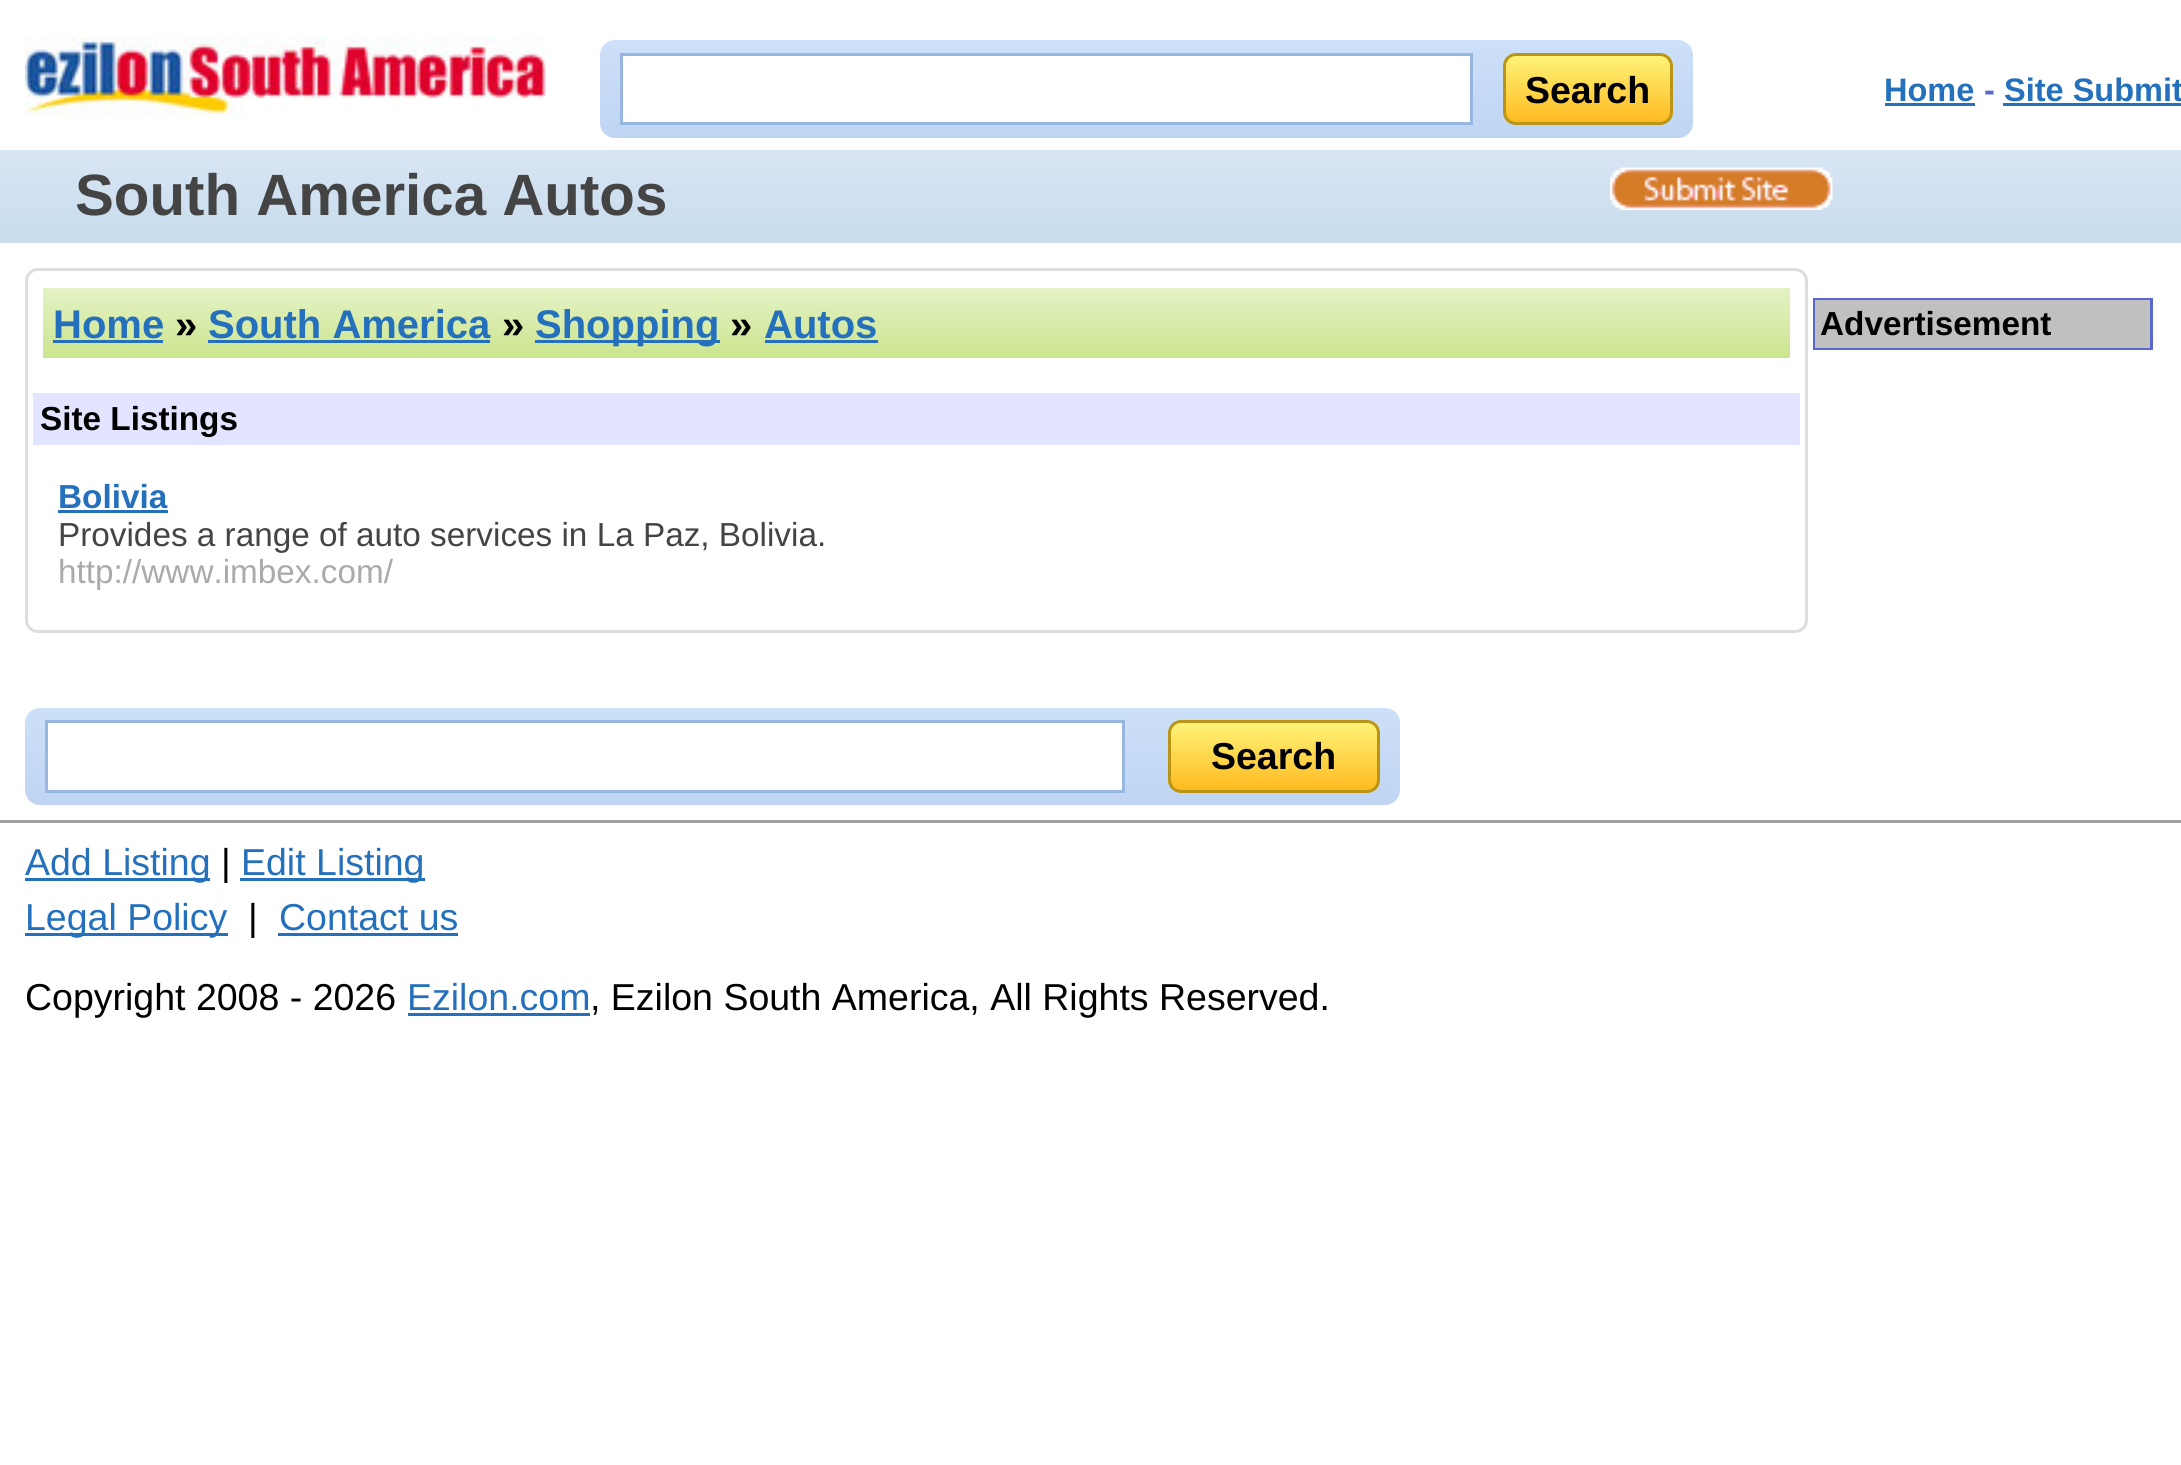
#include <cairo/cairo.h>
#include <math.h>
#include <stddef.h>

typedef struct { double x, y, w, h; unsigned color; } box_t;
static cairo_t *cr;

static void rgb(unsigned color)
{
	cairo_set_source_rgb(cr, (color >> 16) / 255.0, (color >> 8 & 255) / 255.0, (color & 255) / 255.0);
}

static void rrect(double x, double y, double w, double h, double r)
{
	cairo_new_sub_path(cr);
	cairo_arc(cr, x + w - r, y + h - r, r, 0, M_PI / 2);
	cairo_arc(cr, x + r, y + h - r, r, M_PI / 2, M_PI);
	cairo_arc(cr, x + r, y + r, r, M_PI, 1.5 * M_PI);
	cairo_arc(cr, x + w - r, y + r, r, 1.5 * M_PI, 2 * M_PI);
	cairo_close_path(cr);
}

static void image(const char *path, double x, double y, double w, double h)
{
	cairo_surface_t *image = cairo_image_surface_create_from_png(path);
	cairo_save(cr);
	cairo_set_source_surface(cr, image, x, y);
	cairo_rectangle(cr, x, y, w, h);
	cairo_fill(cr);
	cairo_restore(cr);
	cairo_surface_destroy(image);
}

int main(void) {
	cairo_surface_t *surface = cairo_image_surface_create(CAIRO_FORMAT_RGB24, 2181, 1465);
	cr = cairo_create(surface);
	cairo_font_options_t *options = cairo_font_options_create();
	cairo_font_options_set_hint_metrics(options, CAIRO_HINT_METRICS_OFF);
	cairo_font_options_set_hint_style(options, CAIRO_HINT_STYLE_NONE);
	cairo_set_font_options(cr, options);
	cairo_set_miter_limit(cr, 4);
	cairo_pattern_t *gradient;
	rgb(0xffffff);
	cairo_paint(cr);
	image("img/1.png", 25, 37, 521, 81);
	gradient = cairo_pattern_create_linear(1146, 40, 1146, 138);
	cairo_pattern_add_color_stop_rgba(gradient, 0, 0.804, 0.878, 0.976, 1);
	cairo_pattern_add_color_stop_rgba(gradient, 1, 0.749, 0.835, 0.953, 1);
	cairo_set_source(cr, gradient);
	cairo_pattern_destroy(gradient);
	rrect(600, 40, 1093, 98, 15);
	cairo_fill(cr);
	rgb(0xffffff);
	cairo_rectangle(cr, 621.5, 54.5, 850, 69);
	cairo_fill_preserve(cr);
	rgb(0x98b7e0);
	cairo_set_line_width(cr, 3);
	cairo_stroke(cr);
	cairo_save(cr);
	rrect(1503, 53, 170, 72, 13);
	cairo_clip(cr);
	gradient = cairo_pattern_create_linear(1588, 55, 1588, 123);
	cairo_pattern_add_color_stop_rgba(gradient, 0, 0.996, 0.953, 0.471, 1);
	cairo_pattern_add_color_stop_rgba(gradient, 1, 1, 0.729, 0.125, 1);
	cairo_set_source(cr, gradient);
	cairo_pattern_destroy(gradient);
	cairo_rectangle(cr, 1503, 55, 170, 68);
	cairo_fill(cr);
	cairo_restore(cr);
	rrect(1504.5, 54.5, 167, 69, 11.5);
	rgb(0xba9515);
	cairo_stroke(cr);
	rgb(0x2470bd);
	cairo_rectangle(cr, 1885, 103, 90, 3);
	cairo_fill(cr);
	cairo_rectangle(cr, 2003, 103, 178, 3);
	cairo_fill(cr);
	gradient = cairo_pattern_create_linear(1091, 150, 1091, 243);
	cairo_pattern_add_color_stop_rgba(gradient, 0, 0.851, 0.898, 0.957, 1);
	cairo_pattern_add_color_stop_rgba(gradient, 1, 0.78, 0.863, 0.929, 1);
	cairo_set_source(cr, gradient);
	cairo_pattern_destroy(gradient);
	cairo_rectangle(cr, 0, 150, 2181, 93);
	cairo_fill(cr);
	image("img/2.png", 1610, 167, 223, 43);
	rrect(26.5, 269.5, 1780, 362, 11.5);
	rgb(0xdddddd);
	cairo_stroke(cr);
	gradient = cairo_pattern_create_linear(916, 287, 916, 358);
	cairo_pattern_add_color_stop_rgba(gradient, 0, 0.898, 0.949, 0.776, 1);
	cairo_pattern_add_color_stop_rgba(gradient, 1, 0.796, 0.898, 0.557, 1);
	cairo_set_source(cr, gradient);
	cairo_pattern_destroy(gradient);
	cairo_rectangle(cr, 43, 288, 1747, 70);
	cairo_fill(cr);
	{
		static const box_t items[] = {
			{53, 340, 110, 3, 0x2470bd},
			{208, 340, 282, 3, 0x2470bd},
			{535, 340, 185, 3, 0x2470bd},
			{765, 340, 113, 3, 0x2470bd},
			{33, 393, 1767, 52, 0xe3e4ff},
			{58, 510, 110, 3, 0x2470bd},
		};
		for (size_t i = 0; i < sizeof items / sizeof *items; i++) {
			rgb(items[i].color);
			cairo_rectangle(cr, items[i].x, items[i].y, items[i].w, items[i].h);
			cairo_fill(cr);
		}
	}
	cairo_rectangle(cr, 1814.5, 299.5, 337, 49);
	rgb(0x5868d0);
	cairo_stroke(cr);
	rgb(0xc0c0c0);
	cairo_rectangle(cr, 1815, 300, 335, 48);
	cairo_fill(cr);
	gradient = cairo_pattern_create_linear(713, 707, 713, 805);
	cairo_pattern_add_color_stop_rgba(gradient, 0, 0.804, 0.878, 0.976, 1);
	cairo_pattern_add_color_stop_rgba(gradient, 1, 0.749, 0.835, 0.953, 1);
	cairo_set_source(cr, gradient);
	cairo_pattern_destroy(gradient);
	rrect(25, 708, 1375, 97, 15);
	cairo_fill(cr);
	rgb(0xffffff);
	cairo_rectangle(cr, 46.5, 721.5, 1077, 70);
	cairo_fill_preserve(cr);
	rgb(0x98b7e0);
	cairo_stroke(cr);
	cairo_save(cr);
	rrect(1168, 720, 212, 73, 13);
	cairo_clip(cr);
	gradient = cairo_pattern_create_linear(1274, 723, 1274, 790);
	cairo_pattern_add_color_stop_rgba(gradient, 0, 0.996, 0.953, 0.471, 1);
	cairo_pattern_add_color_stop_rgba(gradient, 1, 1, 0.729, 0.125, 1);
	cairo_set_source(cr, gradient);
	cairo_pattern_destroy(gradient);
	cairo_rectangle(cr, 1168, 723, 212, 67);
	cairo_fill(cr);
	cairo_restore(cr);
	rrect(1169.5, 721.5, 209, 70, 11.5);
	rgb(0xba9515);
	cairo_stroke(cr);
	{
		static const box_t items[] = {
			{0, 820, 2181, 3, 0x9f9f9f},
			{25, 878, 185, 3, 0x2470bd},
			{240, 878, 185, 3, 0x2470bd},
			{25, 933, 203, 3, 0x2470bd},
			{278, 933, 180, 3, 0x2470bd},
			{408, 1013, 182, 3, 0x2470bd},
		};
		for (size_t i = 0; i < sizeof items / sizeof *items; i++) {
			rgb(items[i].color);
			cairo_rectangle(cr, items[i].x, items[i].y, items[i].w, items[i].h);
			cairo_fill(cr);
		}
	}
	cairo_select_font_face(cr, "Liberation Sans", CAIRO_FONT_SLANT_NORMAL, CAIRO_FONT_WEIGHT_BOLD);
	cairo_set_font_size(cr, 37.5);
	rgb(0x000000);
	cairo_move_to(cr, 1525, 103);
	cairo_show_text(cr, "Search");
	cairo_set_font_size(cr, 32.5);
	rgb(0x2470bd);
	cairo_move_to(cr, 1884, 101);
	cairo_show_text(cr, "Home");
	rgb(0x5868d0);
	cairo_move_to(cr, 1984, 101);
	cairo_show_text(cr, "-");
	rgb(0x2470bd);
	cairo_move_to(cr, 2004, 101);
	cairo_show_text(cr, "Site Submit");
	cairo_set_font_size(cr, 58.25);
	rgb(0x444444);
	cairo_move_to(cr, 75, 215);
	cairo_show_text(cr, "South America Autos");
	cairo_set_font_size(cr, 40);
	rgb(0x2470bd);
	cairo_move_to(cr, 53, 338);
	cairo_show_text(cr, "Home");
	rgb(0x000000);
	cairo_move_to(cr, 175, 338);
	cairo_show_text(cr, "»");
	rgb(0x2470bd);
	cairo_move_to(cr, 208, 338);
	cairo_show_text(cr, "South America");
	rgb(0x000000);
	cairo_move_to(cr, 502, 338);
	cairo_show_text(cr, "»");
	rgb(0x2470bd);
	cairo_move_to(cr, 535, 338);
	cairo_show_text(cr, "Shopping");
	rgb(0x000000);
	cairo_move_to(cr, 730, 338);
	cairo_show_text(cr, "»");
	rgb(0x2470bd);
	cairo_move_to(cr, 764, 338);
	cairo_show_text(cr, "Autos");
	cairo_set_font_size(cr, 33.3);
	rgb(0x000000);
	cairo_move_to(cr, 40, 430);
	cairo_show_text(cr, "Site Listings");
	rgb(0x2470bd);
	cairo_move_to(cr, 58, 508);
	cairo_show_text(cr, "Bolivia");
	cairo_select_font_face(cr, "Liberation Sans", CAIRO_FONT_SLANT_NORMAL, CAIRO_FONT_WEIGHT_NORMAL);
	rgb(0x444444);
	cairo_move_to(cr, 58, 546);
	cairo_show_text(cr, "Provides a range of auto services in La Paz, Bolivia.");
	rgb(0xaaaaaa);
	cairo_move_to(cr, 58, 583);
	cairo_show_text(cr, "http://www.imbex.com/");
	cairo_select_font_face(cr, "Liberation Sans", CAIRO_FONT_SLANT_NORMAL, CAIRO_FONT_WEIGHT_BOLD);
	rgb(0x000000);
	cairo_move_to(cr, 1820, 335);
	cairo_show_text(cr, "Advertisement");
	cairo_set_font_size(cr, 37.5);
	cairo_move_to(cr, 1211, 769);
	cairo_show_text(cr, "Search");
	cairo_select_font_face(cr, "Liberation Sans", CAIRO_FONT_SLANT_NORMAL, CAIRO_FONT_WEIGHT_NORMAL);
	rgb(0x2470bd);
	cairo_move_to(cr, 25, 875);
	cairo_show_text(cr, "Add Listing");
	rgb(0x000000);
	cairo_move_to(cr, 221, 875);
	cairo_show_text(cr, "|");
	rgb(0x2470bd);
	cairo_move_to(cr, 241, 875);
	cairo_show_text(cr, "Edit Listing");
	cairo_move_to(cr, 25, 930);
	cairo_show_text(cr, "Legal Policy");
	rgb(0x000000);
	cairo_move_to(cr, 248, 930);
	cairo_show_text(cr, "|");
	rgb(0x2470bd);
	cairo_move_to(cr, 279, 930);
	cairo_show_text(cr, "Contact us");
	rgb(0x000000);
	cairo_move_to(cr, 25, 1010);
	cairo_show_text(cr, "Copyright 2008 - 2026");
	rgb(0x2470bd);
	cairo_move_to(cr, 407, 1010);
	cairo_show_text(cr, "Ezilon.com");
	rgb(0x000000);
	cairo_move_to(cr, 590, 1010);
	cairo_show_text(cr, ", Ezilon South America, All Rights Reserved.");
	cairo_surface_write_to_png(surface, "page.png");
	cairo_font_options_destroy(options);
	cairo_destroy(cr);
	cairo_surface_destroy(surface);
	return 0;
}
